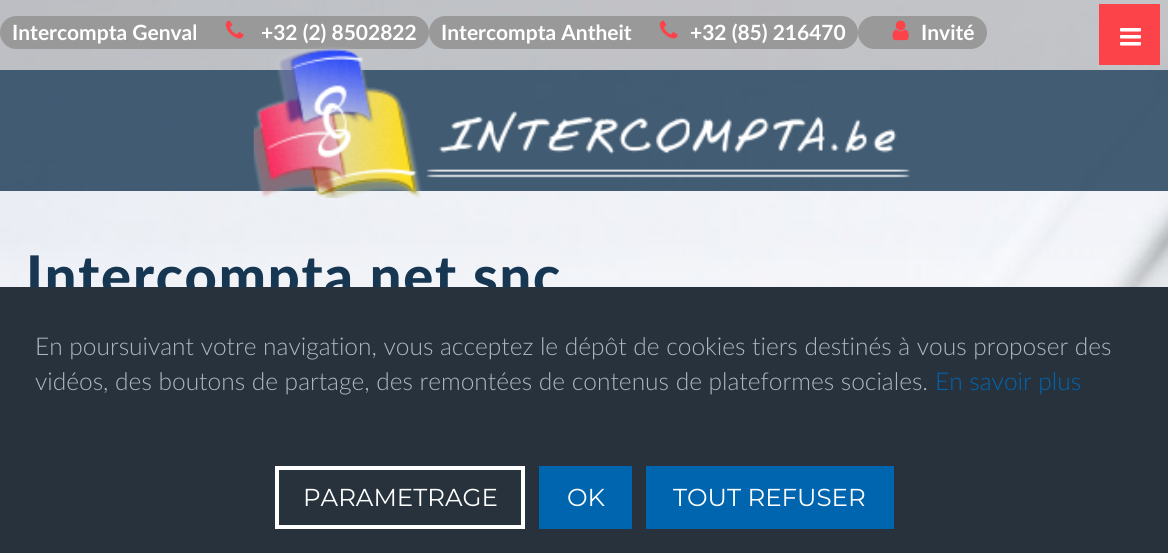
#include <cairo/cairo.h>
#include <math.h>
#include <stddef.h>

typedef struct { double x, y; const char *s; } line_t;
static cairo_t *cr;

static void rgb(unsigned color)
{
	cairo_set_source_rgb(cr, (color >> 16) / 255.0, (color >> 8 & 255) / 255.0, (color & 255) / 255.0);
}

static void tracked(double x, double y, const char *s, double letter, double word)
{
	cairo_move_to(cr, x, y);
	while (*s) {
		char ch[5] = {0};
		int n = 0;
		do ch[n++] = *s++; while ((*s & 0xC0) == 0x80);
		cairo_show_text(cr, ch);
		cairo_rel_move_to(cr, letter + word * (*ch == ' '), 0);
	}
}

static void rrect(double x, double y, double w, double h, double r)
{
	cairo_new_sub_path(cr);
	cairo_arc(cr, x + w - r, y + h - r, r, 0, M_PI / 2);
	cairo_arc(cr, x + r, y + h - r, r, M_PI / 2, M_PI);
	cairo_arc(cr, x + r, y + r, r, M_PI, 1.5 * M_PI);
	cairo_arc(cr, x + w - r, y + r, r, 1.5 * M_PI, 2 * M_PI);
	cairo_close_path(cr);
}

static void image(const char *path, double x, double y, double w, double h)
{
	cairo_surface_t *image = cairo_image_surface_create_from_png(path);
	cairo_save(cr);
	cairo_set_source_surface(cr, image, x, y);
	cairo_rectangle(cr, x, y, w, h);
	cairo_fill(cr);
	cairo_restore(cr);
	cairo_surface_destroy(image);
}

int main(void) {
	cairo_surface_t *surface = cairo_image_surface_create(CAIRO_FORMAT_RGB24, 1168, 553);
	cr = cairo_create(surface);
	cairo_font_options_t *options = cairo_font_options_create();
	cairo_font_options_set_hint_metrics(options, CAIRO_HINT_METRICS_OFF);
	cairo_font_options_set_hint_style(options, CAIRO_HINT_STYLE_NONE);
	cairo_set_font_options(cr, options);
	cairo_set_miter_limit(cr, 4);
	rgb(0xffffff);
	cairo_paint(cr);
	image("img/1.png", 0, 0, 1168, 287);
	cairo_set_source_rgba(cr, 0.086, 0.212, 0.322, 0.8);
	cairo_rectangle(cr, 0, 70, 1168, 121);
	cairo_fill(cr);
	cairo_set_source_rgba(cr, 0, 0, 0, 0.2);
	cairo_rectangle(cr, 0, 0, 1168, 70);
	cairo_fill(cr);
	rgb(0xfc4349);
	cairo_rectangle(cr, 1099, 4, 61, 61);
	cairo_fill(cr);
	image("img/2.png", 1120, 28, 21, 18);
	rgb(0x999999);
	rrect(0, 16, 429, 33, 16.5);
	cairo_fill(cr);
	rrect(429, 16, 429, 33, 16.5);
	cairo_fill(cr);
	rrect(858, 16, 129, 33, 16.5);
	cairo_fill(cr);
	image("img/3.png", 253, 47, 658, 151);
	image("img/4.png", 225, 20, 19, 19);
	image("img/4.png", 659, 20, 19, 19);
	image("img/5.png", 892, 20, 17, 21);
	cairo_select_font_face(cr, "Lato", CAIRO_FONT_SLANT_NORMAL, CAIRO_FONT_WEIGHT_BOLD);
	cairo_set_font_size(cr, 21);
	rgb(0xffffff);
	{
		static const line_t items[] = {
			{12, 40, "Intercompta Genval"},
			{261, 40, "+32 (2) 8502822"},
			{441, 40, "Intercompta Antheit"},
			{690, 40, "+32 (85) 216470"},
			{921, 40, "Invité"},
		};
		for (size_t i = 0; i < sizeof items / sizeof *items; i++) {
			cairo_move_to(cr, items[i].x, items[i].y);
			cairo_show_text(cr, items[i].s);
		}
	}
	cairo_select_font_face(cr, "Lato Black", CAIRO_FONT_SLANT_NORMAL, CAIRO_FONT_WEIGHT_NORMAL);
	cairo_set_font_size(cr, 56);
	rgb(0x163652);
	tracked(26, 296, "Intercompta.net snc", 1.75, 0);
	rgb(0x27323d);
	cairo_rectangle(cr, 0, 287, 1168, 266);
	cairo_fill(cr);
	cairo_select_font_face(cr, "Lato Light", CAIRO_FONT_SLANT_NORMAL, CAIRO_FONT_WEIGHT_NORMAL);
	cairo_set_font_size(cr, 24.5);
	rgb(0xacb8c1);
	cairo_move_to(cr, 35, 355);
	cairo_show_text(cr, "En poursuivant votre navigation, vous acceptez le dépôt de cookies tiers destinés à vous proposer des");
	cairo_move_to(cr, 35, 390);
	cairo_show_text(cr, "vidéos, des boutons de partage, des remontées de contenus de plateformes sociales.");
	rgb(0x0065af);
	cairo_move_to(cr, 935, 390);
	cairo_show_text(cr, "En savoir plus");
	cairo_rectangle(cr, 277, 468, 246, 59);
	rgb(0xffffff);
	cairo_set_line_width(cr, 4);
	cairo_stroke(cr);
	cairo_select_font_face(cr, "Montserrat", CAIRO_FONT_SLANT_NORMAL, CAIRO_FONT_WEIGHT_NORMAL);
	cairo_move_to(cr, 303, 506);
	cairo_show_text(cr, "PARAMETRAGE");
	rgb(0x0065af);
	cairo_rectangle(cr, 539, 466, 93, 63);
	cairo_fill(cr);
	rgb(0xffffff);
	cairo_move_to(cr, 567, 506);
	cairo_show_text(cr, "OK");
	rgb(0x0065af);
	cairo_rectangle(cr, 646, 466, 248, 63);
	cairo_fill(cr);
	rgb(0xffffff);
	cairo_move_to(cr, 673, 506);
	cairo_show_text(cr, "TOUT REFUSER");
	cairo_surface_write_to_png(surface, "page.png");
	cairo_font_options_destroy(options);
	cairo_destroy(cr);
	cairo_surface_destroy(surface);
	return 0;
}
